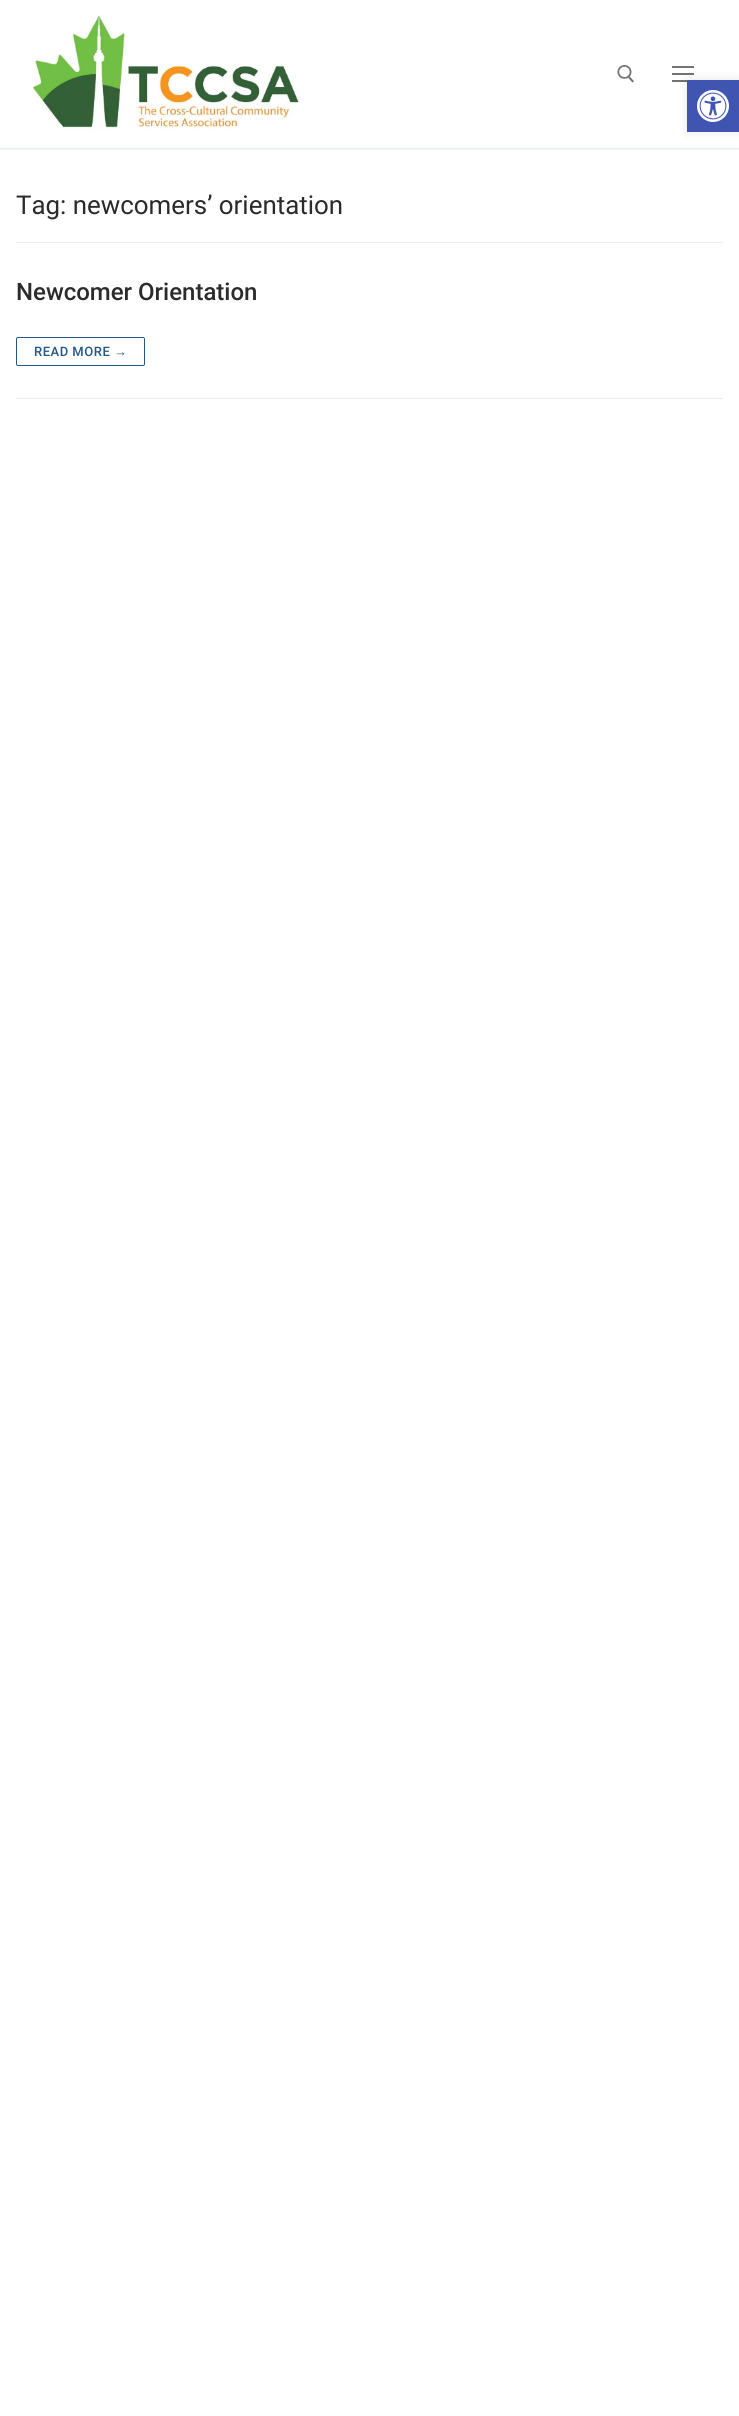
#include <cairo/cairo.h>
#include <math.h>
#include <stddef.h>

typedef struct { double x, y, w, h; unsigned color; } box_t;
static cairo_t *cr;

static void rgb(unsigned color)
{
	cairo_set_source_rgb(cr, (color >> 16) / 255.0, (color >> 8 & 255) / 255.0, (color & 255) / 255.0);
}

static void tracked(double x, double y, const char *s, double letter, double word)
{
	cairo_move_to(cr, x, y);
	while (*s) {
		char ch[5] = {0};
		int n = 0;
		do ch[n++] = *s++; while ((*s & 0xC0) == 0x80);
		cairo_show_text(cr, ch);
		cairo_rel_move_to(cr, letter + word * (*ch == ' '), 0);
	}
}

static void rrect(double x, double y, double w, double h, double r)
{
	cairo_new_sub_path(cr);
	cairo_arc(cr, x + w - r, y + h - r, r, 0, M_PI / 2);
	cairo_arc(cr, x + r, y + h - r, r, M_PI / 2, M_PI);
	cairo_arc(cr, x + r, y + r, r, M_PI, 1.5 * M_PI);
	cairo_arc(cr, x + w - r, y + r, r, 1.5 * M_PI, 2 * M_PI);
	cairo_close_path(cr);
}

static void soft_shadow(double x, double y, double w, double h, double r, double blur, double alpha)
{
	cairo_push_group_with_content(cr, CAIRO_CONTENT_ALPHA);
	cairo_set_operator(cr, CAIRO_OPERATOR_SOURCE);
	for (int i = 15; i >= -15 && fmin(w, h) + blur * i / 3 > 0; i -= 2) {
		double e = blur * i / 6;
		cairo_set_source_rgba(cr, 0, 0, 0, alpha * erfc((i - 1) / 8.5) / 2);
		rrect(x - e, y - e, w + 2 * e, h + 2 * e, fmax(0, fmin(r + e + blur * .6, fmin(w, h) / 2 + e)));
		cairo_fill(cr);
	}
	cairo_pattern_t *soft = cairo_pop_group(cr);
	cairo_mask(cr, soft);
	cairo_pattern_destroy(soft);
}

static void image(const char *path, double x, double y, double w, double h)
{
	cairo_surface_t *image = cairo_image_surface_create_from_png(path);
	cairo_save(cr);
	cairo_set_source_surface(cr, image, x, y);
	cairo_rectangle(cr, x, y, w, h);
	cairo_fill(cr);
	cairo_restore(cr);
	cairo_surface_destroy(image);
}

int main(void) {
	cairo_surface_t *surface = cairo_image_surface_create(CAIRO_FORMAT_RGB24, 739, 2416);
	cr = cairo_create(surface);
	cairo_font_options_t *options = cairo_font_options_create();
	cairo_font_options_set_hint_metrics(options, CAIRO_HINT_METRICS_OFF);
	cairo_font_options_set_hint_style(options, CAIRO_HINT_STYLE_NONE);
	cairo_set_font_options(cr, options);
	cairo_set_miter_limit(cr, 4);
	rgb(0xffffff);
	cairo_paint(cr);
	cairo_save(cr);
	cairo_rectangle(cr, 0, 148, 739, 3);
	cairo_clip(cr);
	rgb(0xe1e5ea);
	soft_shadow(0, 1, 739, 148, 0, 1, 1);
	cairo_restore(cr);
	{
		static const box_t items[] = {
			{672, 73, 22, 2, 0x737373},
			{672, 66, 22, 2, 0x737373},
			{672, 80, 22, 2, 0x737373},
		};
		for (size_t i = 0; i < sizeof items / sizeof *items; i++) {
			rgb(items[i].color);
			cairo_rectangle(cr, items[i].x, items[i].y, items[i].w, items[i].h);
			cairo_fill(cr);
		}
	}
	rgb(0x000000);
	soft_shadow(687, 80, 52, 52, 0, 5, 0.1);
	rgb(0x4054b2);
	cairo_rectangle(cr, 687, 80, 52, 52);
	cairo_fill(cr);
	image("img/1.png", 697, 90, 32, 32);
	image("img/2.png", 30, 15, 269, 116);
	image("img/3.png", 617, 65, 17, 18);
	rgb(0xeaecee);
	cairo_rectangle(cr, 16, 242, 707, 1);
	cairo_fill(cr);
	cairo_rectangle(cr, 16, 398, 707, 1);
	cairo_fill(cr);
	rrect(16.5, 337.5, 128, 28, 1.5);
	rgb(0x235787);
	cairo_set_line_width(cr, 1);
	cairo_stroke(cr);
	cairo_select_font_face(cr, "Roboto", CAIRO_FONT_SLANT_NORMAL, CAIRO_FONT_WEIGHT_NORMAL);
	cairo_set_font_size(cr, 25.9);
	rgb(0x2b2b2b);
	cairo_move_to(cr, 16, 214);
	cairo_show_text(cr, "Tag: newcomers’ orientation");
	cairo_select_font_face(cr, "Roboto Medium", CAIRO_FONT_SLANT_NORMAL, CAIRO_FONT_WEIGHT_NORMAL);
	cairo_set_font_size(cr, 24);
	cairo_move_to(cr, 16, 300);
	cairo_show_text(cr, "Newcomer Orientation");
	cairo_set_font_size(cr, 13);
	rgb(0x235787);
	tracked(34, 356, "READ MORE", 0.5, 0);
	cairo_select_font_face(cr, "Liberation Sans", CAIRO_FONT_SLANT_NORMAL, CAIRO_FONT_WEIGHT_NORMAL);
	tracked(114, 356, "→", 0.5, 0);
	cairo_surface_write_to_png(surface, "page.png");
	cairo_font_options_destroy(options);
	cairo_destroy(cr);
	cairo_surface_destroy(surface);
	return 0;
}
